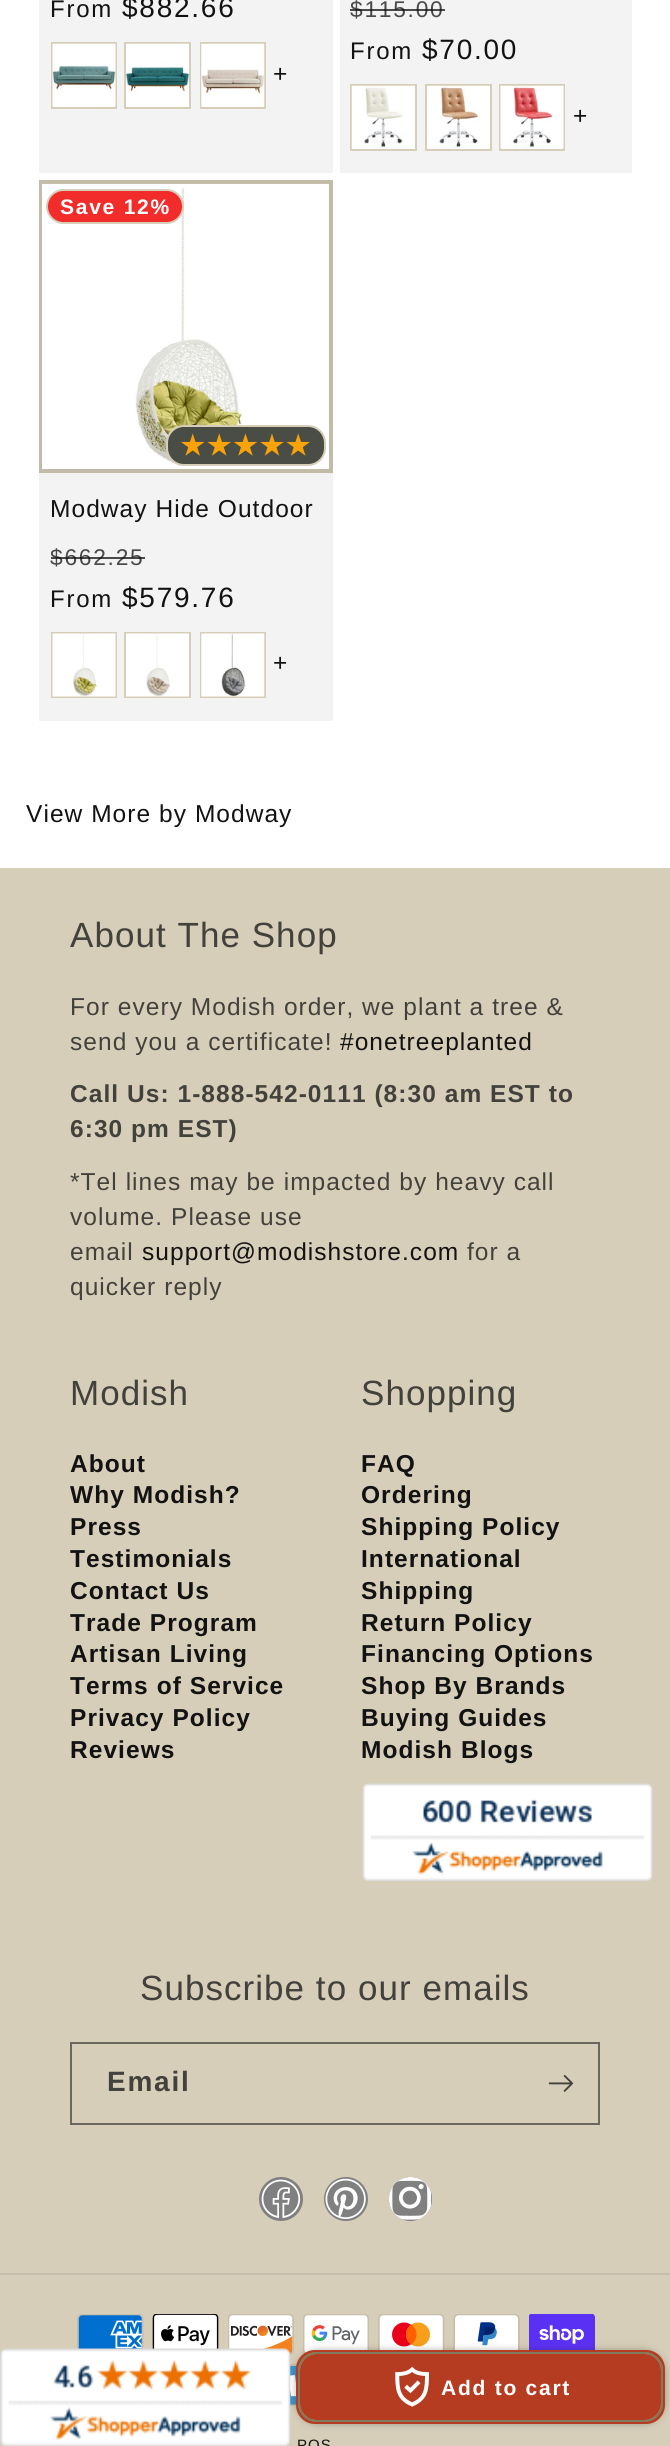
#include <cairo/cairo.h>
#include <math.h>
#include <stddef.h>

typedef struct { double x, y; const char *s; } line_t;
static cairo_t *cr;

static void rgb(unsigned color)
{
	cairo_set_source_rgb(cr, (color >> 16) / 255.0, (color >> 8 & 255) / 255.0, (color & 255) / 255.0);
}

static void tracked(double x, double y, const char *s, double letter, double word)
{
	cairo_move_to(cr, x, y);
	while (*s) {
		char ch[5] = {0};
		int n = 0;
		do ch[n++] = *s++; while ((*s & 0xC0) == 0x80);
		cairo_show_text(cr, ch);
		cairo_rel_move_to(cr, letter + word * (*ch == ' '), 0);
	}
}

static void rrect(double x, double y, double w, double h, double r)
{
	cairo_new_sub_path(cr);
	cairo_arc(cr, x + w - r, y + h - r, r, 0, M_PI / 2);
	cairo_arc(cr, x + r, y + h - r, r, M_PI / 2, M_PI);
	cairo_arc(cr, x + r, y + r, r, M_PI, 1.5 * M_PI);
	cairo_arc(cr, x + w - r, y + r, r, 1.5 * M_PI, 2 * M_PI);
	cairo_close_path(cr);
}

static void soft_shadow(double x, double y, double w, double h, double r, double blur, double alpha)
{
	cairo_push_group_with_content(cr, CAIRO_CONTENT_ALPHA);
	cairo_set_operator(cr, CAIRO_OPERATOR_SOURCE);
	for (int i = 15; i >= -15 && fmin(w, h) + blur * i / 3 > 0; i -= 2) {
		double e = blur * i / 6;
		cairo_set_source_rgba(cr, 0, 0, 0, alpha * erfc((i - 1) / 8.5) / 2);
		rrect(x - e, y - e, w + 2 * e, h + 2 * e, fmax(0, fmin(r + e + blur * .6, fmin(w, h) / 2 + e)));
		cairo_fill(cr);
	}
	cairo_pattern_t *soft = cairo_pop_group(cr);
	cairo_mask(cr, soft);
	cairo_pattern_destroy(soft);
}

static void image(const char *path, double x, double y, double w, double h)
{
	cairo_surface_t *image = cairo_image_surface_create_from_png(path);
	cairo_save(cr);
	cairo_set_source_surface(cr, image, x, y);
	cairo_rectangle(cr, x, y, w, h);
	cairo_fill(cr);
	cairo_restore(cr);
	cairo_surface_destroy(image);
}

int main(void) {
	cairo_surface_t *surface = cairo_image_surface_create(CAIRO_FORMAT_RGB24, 670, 2446);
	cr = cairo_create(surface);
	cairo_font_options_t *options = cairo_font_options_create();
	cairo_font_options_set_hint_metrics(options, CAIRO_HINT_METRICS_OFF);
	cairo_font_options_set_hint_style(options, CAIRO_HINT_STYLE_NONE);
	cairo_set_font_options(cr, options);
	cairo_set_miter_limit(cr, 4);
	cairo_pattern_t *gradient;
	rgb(0xffffff);
	cairo_paint(cr);
	rgb(0xf3f3f3);
	cairo_rectangle(cr, 39, 0, 294, 173);
	cairo_fill(cr);
	cairo_rectangle(cr, 52, 43, 64, 65);
	rgb(0xd6ceb8);
	cairo_stroke(cr);
	cairo_rectangle(cr, 125, 43, 65, 65);
	cairo_stroke(cr);
	cairo_rectangle(cr, 201, 43, 64, 65);
	cairo_stroke(cr);
	image("img/1.png", 52, 43, 64, 64);
	image("img/2.png", 126, 43, 63, 64);
	image("img/3.png", 201, 43, 64, 64);
	rgb(0xf3f3f3);
	cairo_rectangle(cr, 340, 0, 292, 173);
	cairo_fill(cr);
	cairo_rectangle(cr, 351, 85, 65, 65);
	rgb(0xd6ceb8);
	cairo_stroke(cr);
	cairo_rectangle(cr, 426, 85, 65, 65);
	cairo_stroke(cr);
	cairo_rectangle(cr, 500, 85, 64, 65);
	cairo_stroke(cr);
	image("img/4.png", 351, 85, 64, 64);
	image("img/5.png", 427, 85, 63, 64);
	image("img/6.png", 500, 85, 64, 64);
	cairo_rectangle(cr, 41, 182, 290, 289);
	rgb(0xc2bba7);
	cairo_set_line_width(cr, 4);
	cairo_stroke(cr);
	image("img/7.png", 42, 183, 287, 286);
	rgb(0xf22b2b);
	rrect(47, 190, 136, 33, 16.5);
	cairo_fill_preserve(cr);
	rgb(0xd6ceb8);
	cairo_set_line_width(cr, 2);
	cairo_stroke(cr);
	rgb(0x494d46);
	rrect(167, 426, 158, 39, 17);
	cairo_fill_preserve(cr);
	rgb(0xd6ceb8);
	cairo_stroke(cr);
	rgb(0xf3f3f3);
	cairo_rectangle(cr, 39, 473, 294, 248);
	cairo_fill(cr);
	cairo_rectangle(cr, 52, 633, 64, 64);
	rgb(0xd6ceb8);
	cairo_stroke(cr);
	cairo_rectangle(cr, 125, 633, 65, 64);
	cairo_stroke(cr);
	cairo_rectangle(cr, 201, 633, 64, 64);
	cairo_stroke(cr);
	image("img/8.png", 52, 633, 64, 64);
	image("img/9.png", 126, 633, 63, 64);
	image("img/10.png", 201, 633, 64, 64);
	cairo_rectangle(cr, 0, 868, 670, 1578);
	cairo_fill(cr);
	image("img/19.png", 228, 2314, 66, 41);
	image("img/20.png", 303, 2314, 66, 40);
	image("img/21.png", 378, 2314, 67, 36);
	image("img/22.png", 453, 2314, 67, 36);
	image("img/23.png", 529, 2314, 66, 36);
	image("img/24.png", 290, 2364, 7, 42);
	rgb(0x121212);
	soft_shadow(298, 2352, 365, 70, 19, 4.5, 0.45);
	rgb(0xb53c20);
	rrect(297, 2351, 367, 72, 18);
	cairo_fill_preserve(cr);
	cairo_stroke(cr);
	image("img/11.png", 395, 2366, 34, 41);
	rrect(299, 2353, 363, 68, 18);
	rgb(0xddd09c);
	cairo_stroke(cr);
	rrect(299, 2353, 363, 68, 18);
	cairo_set_source_rgba(cr, 0.071, 0.071, 0.071, 0.45);
	cairo_stroke(cr);
	image("img/12.png", 362, 1783, 291, 98);
	cairo_rectangle(cr, 71, 2043, 528, 81);
	rgb(0x6a675d);
	cairo_stroke(cr);
	image("img/13.png", 548, 2075, 25, 17);
	rgb(0x808080);
	cairo_arc(cr, 281, 2199, 22, 0, 2 * M_PI);
	cairo_fill(cr);
	image("img/14.png", 261, 2179, 40, 39);
	cairo_arc(cr, 346, 2199, 22, 0, 2 * M_PI);
	cairo_fill(cr);
	image("img/15.png", 325, 2178, 41, 41);
	rrect(389, 2177, 43, 44, 21.5);
	cairo_fill(cr);
	image("img/16.png", 389, 2177, 43, 43);
	rgb(0xc6bfab);
	cairo_rectangle(cr, 0, 2273, 670, 2);
	cairo_fill(cr);
	image("img/17.png", 77, 2314, 67, 35);
	image("img/18.png", 152, 2314, 67, 35);
	image("img/25.png", 0, 2348, 291, 98);
	cairo_select_font_face(cr, "Liberation Sans", CAIRO_FONT_SLANT_NORMAL, CAIRO_FONT_WEIGHT_NORMAL);
	cairo_set_font_size(cr, 24);
	rgb(0x121212);
	tracked(50, 17, "From", 1.75, 0);
	cairo_set_font_size(cr, 28);
	tracked(122, 17, "$882.66", 1.75, 0);
	cairo_set_font_size(cr, 24.5);
	tracked(273, 82, "+", 1.05, 0);
	cairo_set_font_size(cr, 22.75);
	rgb(0x4a4a4a);
	tracked(350, 17, "$115.00", 1.75, 0);
	cairo_set_source_rgba(cr, 0.071, 0.071, 0.071, 0.75);
	cairo_rectangle(cr, 350, 9, 95, 2);
	cairo_fill(cr);
	cairo_set_font_size(cr, 24);
	rgb(0x121212);
	tracked(350, 59, "From", 1.75, 0);
	cairo_set_font_size(cr, 28);
	tracked(422, 59, "$70.00", 1.75, 0);
	cairo_set_font_size(cr, 24.5);
	tracked(573, 124, "+", 1.05, 0);
	cairo_select_font_face(cr, "Liberation Sans", CAIRO_FONT_SLANT_NORMAL, CAIRO_FONT_WEIGHT_BOLD);
	cairo_set_font_size(cr, 21);
	rgb(0xffffff);
	tracked(60, 214, "Save 12%", 1.75, 0);
	cairo_select_font_face(cr, "DejaVu Sans", CAIRO_FONT_SLANT_NORMAL, CAIRO_FONT_WEIGHT_BOLD);
	cairo_set_font_size(cr, 27.5);
	gradient = cairo_pattern_create_linear(180, 445, 311, 445);
	cairo_pattern_add_color_stop_rgba(gradient, 1, 0.969, 0.639, 0.035, 1);
	cairo_pattern_add_color_stop_rgba(gradient, 1, 0.255, 0.267, 0.243, 1);
	cairo_set_source(cr, gradient);
	cairo_pattern_destroy(gradient);
	tracked(180, 455, "★★★★★", 1.75, 0);
	cairo_select_font_face(cr, "Liberation Sans", CAIRO_FONT_SLANT_NORMAL, CAIRO_FONT_WEIGHT_NORMAL);
	cairo_set_font_size(cr, 24.5);
	rgb(0x121212);
	tracked(50, 517, "Modway Hide Outdoor", 1.05, 0);
	cairo_set_font_size(cr, 22.75);
	rgb(0x4a4a4a);
	tracked(50, 565, "$662.25", 1.75, 0);
	cairo_set_source_rgba(cr, 0.071, 0.071, 0.071, 0.75);
	cairo_rectangle(cr, 51, 557, 94, 2);
	cairo_fill(cr);
	cairo_set_font_size(cr, 24);
	rgb(0x121212);
	tracked(50, 607, "From", 1.75, 0);
	cairo_set_font_size(cr, 28);
	tracked(122, 607, "$579.76", 1.75, 0);
	cairo_set_font_size(cr, 24.5);
	tracked(273, 671, "+", 1.05, 0);
	tracked(26, 822, "View More by Modway", 1.05, 0);
	cairo_select_font_face(cr, "Liberation Sans", CAIRO_FONT_SLANT_NORMAL, CAIRO_FONT_WEIGHT_BOLD);
	cairo_set_font_size(cr, 21);
	rgb(0xffffff);
	tracked(441, 2395, "Add to cart", 1.75, 0);
	cairo_select_font_face(cr, "Liberation Sans", CAIRO_FONT_SLANT_NORMAL, CAIRO_FONT_WEIGHT_NORMAL);
	cairo_set_font_size(cr, 35);
	rgb(0x43413c);
	tracked(70, 947, "About The Shop", 1.05, 0);
	cairo_set_font_size(cr, 24.5);
	tracked(70, 1015, "For every Modish order, we plant a tree &", 1.05, 0);
	tracked(70, 1050, "send you a certificate!", 1.05, 0);
	rgb(0x121212);
	tracked(340, 1050, "#onetreeplanted", 1.05, 0);
	cairo_select_font_face(cr, "Liberation Sans", CAIRO_FONT_SLANT_NORMAL, CAIRO_FONT_WEIGHT_BOLD);
	rgb(0x43413c);
	tracked(70, 1102, "Call Us: 1-888-542-0111 (8:30 am EST to", 1.05, 0);
	tracked(70, 1137, "6:30 pm EST)", 1.05, 0);
	cairo_select_font_face(cr, "Liberation Sans", CAIRO_FONT_SLANT_NORMAL, CAIRO_FONT_WEIGHT_NORMAL);
	{
		static const line_t items[] = {
			{70, 1190, "*Tel lines may be impacted by heavy call"},
			{70, 1225, "volume. Please use"},
			{70, 1260, "email"},
		};
		for (size_t i = 0; i < sizeof items / sizeof *items; i++) {
			tracked(items[i].x, items[i].y, items[i].s, 1.05, 0);
		}
	}
	rgb(0x121212);
	tracked(142, 1260, "support@modishstore.com", 1.05, 0);
	rgb(0x43413c);
	tracked(467, 1260, "for a", 1.05, 0);
	tracked(70, 1295, "quicker reply", 1.05, 0);
	cairo_set_font_size(cr, 35);
	tracked(70, 1405, "Modish", 1.05, 0);
	cairo_select_font_face(cr, "Liberation Sans", CAIRO_FONT_SLANT_NORMAL, CAIRO_FONT_WEIGHT_BOLD);
	cairo_set_font_size(cr, 24.5);
	rgb(0x121212);
	{
		static const line_t items[] = {
			{70, 1472, "About"},
			{70, 1503, "Why Modish?"},
			{70, 1535, "Press"},
			{70, 1567, "Testimonials"},
			{70, 1599, "Contact Us"},
			{70, 1631, "Trade Program"},
			{70, 1662, "Artisan Living"},
			{70, 1694, "Terms of Service"},
			{70, 1726, "Privacy Policy"},
			{70, 1758, "Reviews"},
		};
		for (size_t i = 0; i < sizeof items / sizeof *items; i++) {
			tracked(items[i].x, items[i].y, items[i].s, 1.05, 0);
		}
	}
	cairo_select_font_face(cr, "Liberation Sans", CAIRO_FONT_SLANT_NORMAL, CAIRO_FONT_WEIGHT_NORMAL);
	cairo_set_font_size(cr, 35);
	rgb(0x43413c);
	tracked(361, 1405, "Shopping", 1.05, 0);
	cairo_select_font_face(cr, "Liberation Sans", CAIRO_FONT_SLANT_NORMAL, CAIRO_FONT_WEIGHT_BOLD);
	cairo_set_font_size(cr, 24.5);
	rgb(0x121212);
	{
		static const line_t items[] = {
			{361, 1472, "FAQ"},
			{361, 1503, "Ordering"},
			{361, 1535, "Shipping Policy"},
			{361, 1567, "International"},
			{361, 1599, "Shipping"},
			{361, 1631, "Return Policy"},
			{361, 1662, "Financing Options"},
			{361, 1694, "Shop By Brands"},
			{361, 1726, "Buying Guides"},
			{361, 1758, "Modish Blogs"},
		};
		for (size_t i = 0; i < sizeof items / sizeof *items; i++) {
			tracked(items[i].x, items[i].y, items[i].s, 1.05, 0);
		}
	}
	cairo_select_font_face(cr, "Liberation Sans", CAIRO_FONT_SLANT_NORMAL, CAIRO_FONT_WEIGHT_NORMAL);
	cairo_set_font_size(cr, 35);
	rgb(0x43413c);
	tracked(140, 2000, "Subscribe to our emails", 1.05, 0);
	cairo_select_font_face(cr, "Liberation Sans", CAIRO_FONT_SLANT_NORMAL, CAIRO_FONT_WEIGHT_BOLD);
	cairo_set_font_size(cr, 28);
	tracked(107, 2091, "Email", 1.75, 0);
	cairo_select_font_face(cr, "Liberation Sans", CAIRO_FONT_SLANT_NORMAL, CAIRO_FONT_WEIGHT_NORMAL);
	cairo_set_font_size(cr, 15);
	rgb(0x121212);
	tracked(297, 2450, "POS", 1, 0);
	cairo_surface_write_to_png(surface, "page.png");
	cairo_font_options_destroy(options);
	cairo_destroy(cr);
	cairo_surface_destroy(surface);
	return 0;
}
